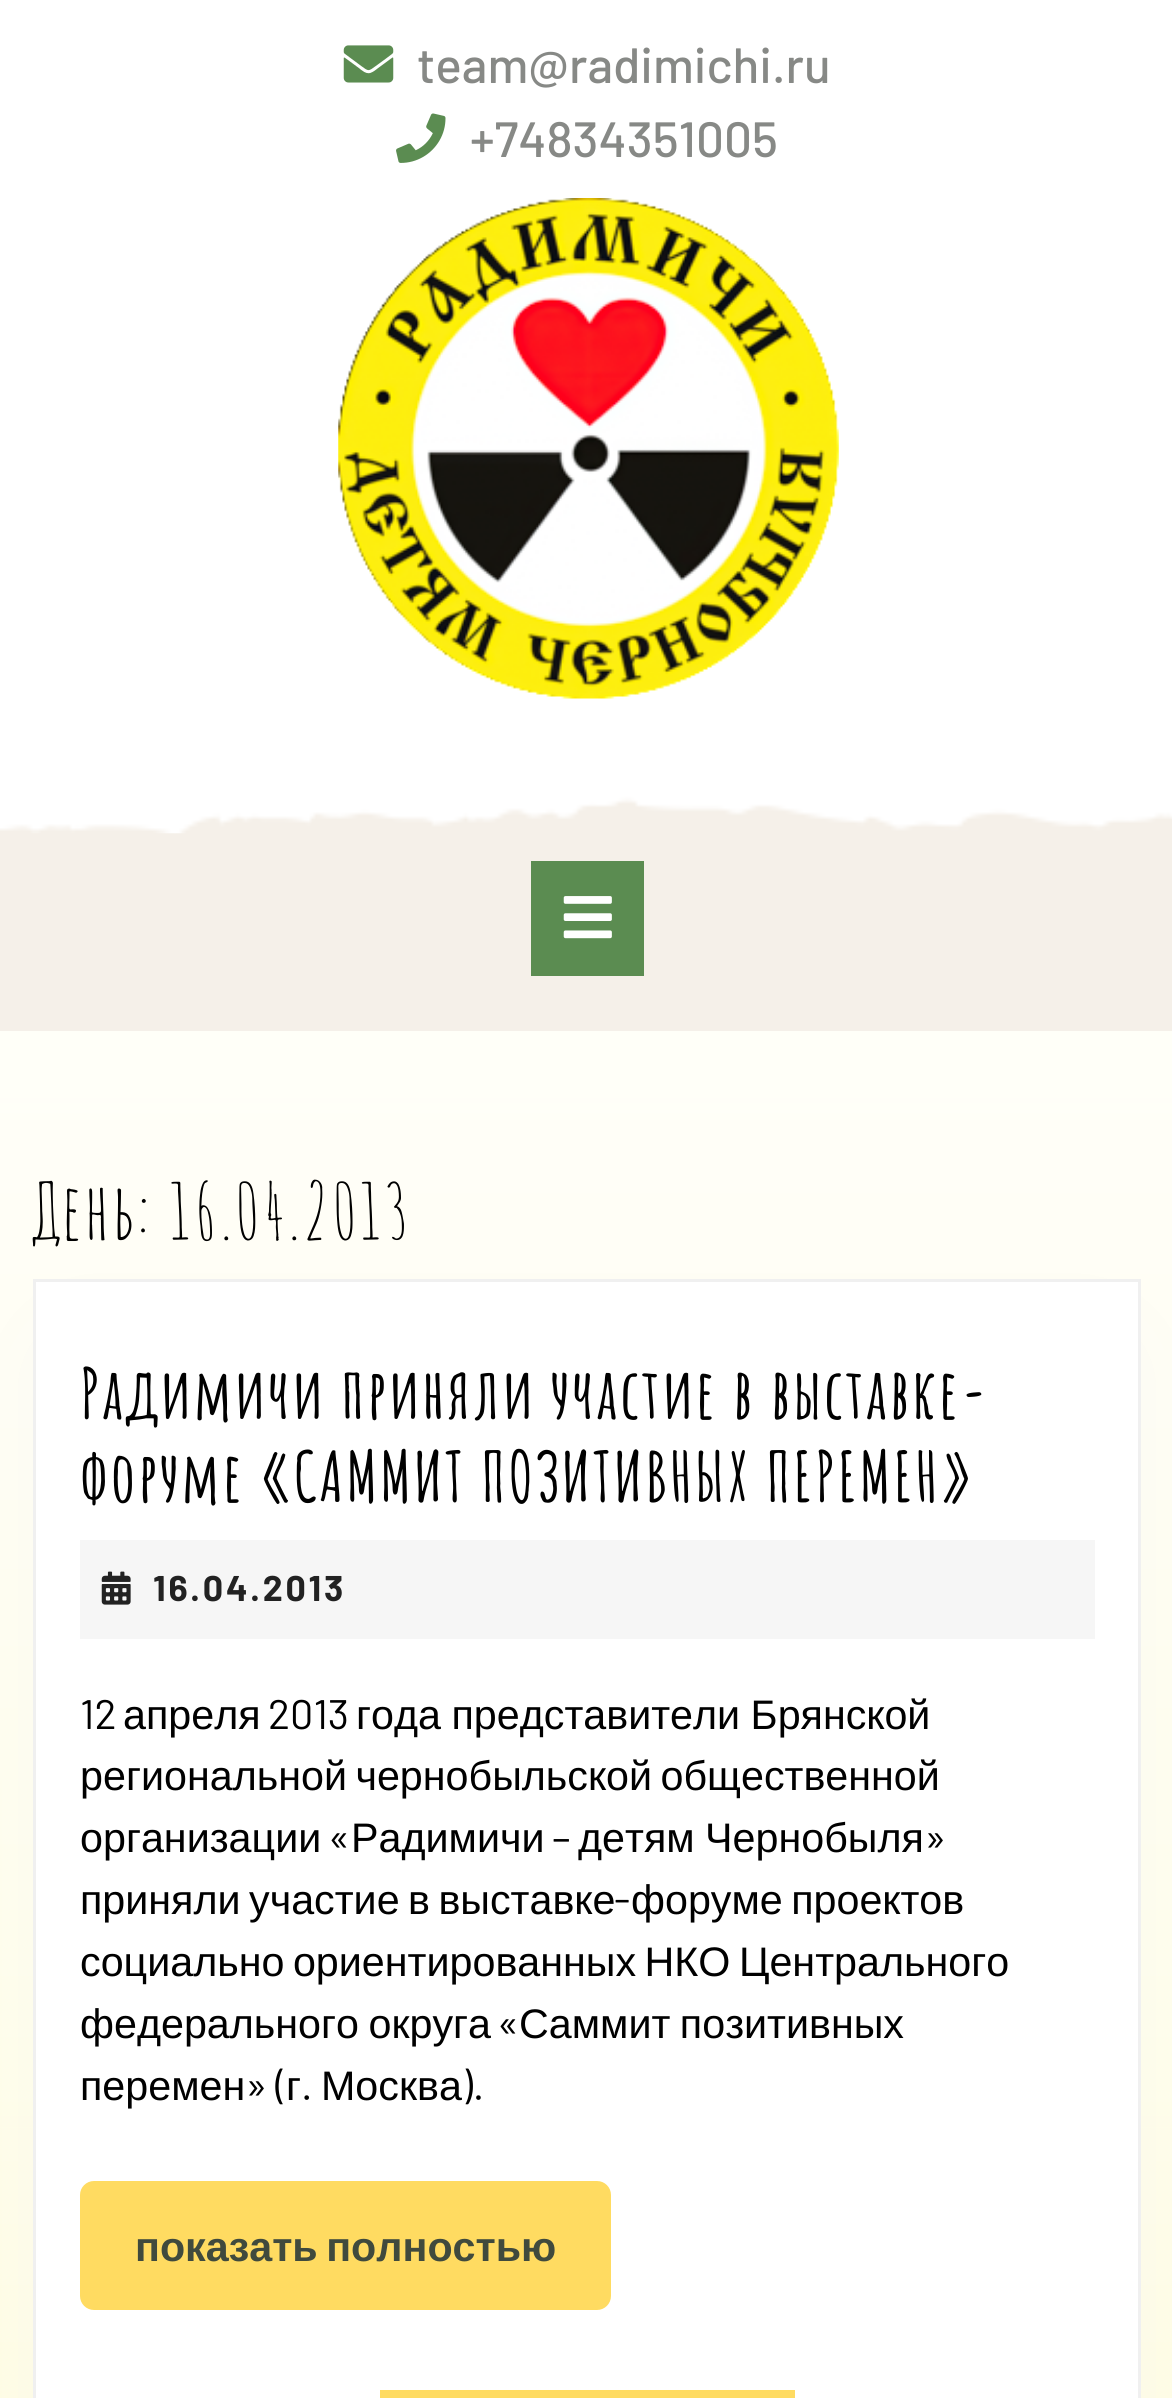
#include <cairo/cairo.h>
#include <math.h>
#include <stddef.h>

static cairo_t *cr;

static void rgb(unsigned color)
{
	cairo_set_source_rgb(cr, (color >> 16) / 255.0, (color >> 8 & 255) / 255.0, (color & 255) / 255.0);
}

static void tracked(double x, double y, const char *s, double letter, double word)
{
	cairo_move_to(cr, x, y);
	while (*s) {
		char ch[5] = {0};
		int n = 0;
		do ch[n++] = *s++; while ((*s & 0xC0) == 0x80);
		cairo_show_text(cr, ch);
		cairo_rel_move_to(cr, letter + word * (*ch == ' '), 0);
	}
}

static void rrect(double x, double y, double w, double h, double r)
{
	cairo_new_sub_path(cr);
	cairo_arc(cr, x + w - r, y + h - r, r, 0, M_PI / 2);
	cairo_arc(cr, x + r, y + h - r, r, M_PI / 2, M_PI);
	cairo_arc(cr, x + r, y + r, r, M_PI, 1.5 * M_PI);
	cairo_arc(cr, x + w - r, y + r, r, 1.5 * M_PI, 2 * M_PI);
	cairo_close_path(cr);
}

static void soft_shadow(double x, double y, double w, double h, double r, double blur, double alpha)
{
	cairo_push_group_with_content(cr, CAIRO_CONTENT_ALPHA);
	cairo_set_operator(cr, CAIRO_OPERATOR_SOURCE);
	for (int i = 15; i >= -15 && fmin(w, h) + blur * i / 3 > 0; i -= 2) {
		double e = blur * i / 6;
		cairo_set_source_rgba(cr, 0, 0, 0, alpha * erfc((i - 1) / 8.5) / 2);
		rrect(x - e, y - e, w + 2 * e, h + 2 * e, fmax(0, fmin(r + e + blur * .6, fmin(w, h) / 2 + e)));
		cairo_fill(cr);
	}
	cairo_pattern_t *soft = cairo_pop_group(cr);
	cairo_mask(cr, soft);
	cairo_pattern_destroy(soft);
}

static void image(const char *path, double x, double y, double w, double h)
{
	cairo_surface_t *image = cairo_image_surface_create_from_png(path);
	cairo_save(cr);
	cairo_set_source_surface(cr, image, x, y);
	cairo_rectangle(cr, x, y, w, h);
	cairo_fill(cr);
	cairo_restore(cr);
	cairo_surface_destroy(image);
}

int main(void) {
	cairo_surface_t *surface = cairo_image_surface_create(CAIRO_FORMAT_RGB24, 1172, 2398);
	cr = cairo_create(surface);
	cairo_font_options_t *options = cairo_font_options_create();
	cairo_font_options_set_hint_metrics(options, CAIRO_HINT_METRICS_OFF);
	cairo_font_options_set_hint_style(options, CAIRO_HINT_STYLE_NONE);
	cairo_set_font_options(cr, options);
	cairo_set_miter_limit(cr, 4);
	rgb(0xffffff);
	cairo_paint(cr);
	image("img/1.png", 0, 1031, 1172, 1367);
	image("img/2.png", 343, 45, 51, 38);
	image("img/3.png", 396, 113, 50, 50);
	image("img/4.png", 338, 198, 501, 501);
	rgb(0xf5f0e9);
	cairo_rectangle(cr, 0, 796, 1172, 235);
	cairo_fill(cr);
	image("img/5.png", 0, 792, 1172, 42);
	rgb(0x5b8c51);
	cairo_rectangle(cr, 531, 861, 113, 115);
	cairo_fill(cr);
	image("img/6.png", 563, 896, 49, 43);
	rgb(0xf0f0f0);
	soft_shadow(74, 1361, 1026, 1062, 0, 48, 1);
	rgb(0xffffff);
	cairo_rectangle(cr, 34.5, 1280.5, 1105, 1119);
	cairo_fill_preserve(cr);
	rgb(0xf0f0f0);
	cairo_set_line_width(cr, 3);
	cairo_stroke(cr);
	rgb(0xf6f6f6);
	cairo_rectangle(cr, 80, 1540, 1015, 99);
	cairo_fill(cr);
	image("img/7.png", 101, 1571, 30, 34);
	rgb(0xffdb61);
	rrect(80, 2181, 531, 129, 14);
	cairo_fill(cr);
	cairo_rectangle(cr, 380, 2390, 415, 8);
	cairo_fill(cr);
	cairo_select_font_face(cr, "Barlow Medium", CAIRO_FONT_SLANT_NORMAL, CAIRO_FONT_WEIGHT_NORMAL);
	cairo_set_font_size(cr, 49.5);
	rgb(0x878986);
	cairo_move_to(cr, 417, 83);
	cairo_show_text(cr, "team@radimichi.ru");
	cairo_move_to(cr, 470, 157);
	cairo_show_text(cr, "+74834351005");
	cairo_select_font_face(cr, "Amatic SC", CAIRO_FONT_SLANT_NORMAL, CAIRO_FONT_WEIGHT_NORMAL);
	cairo_set_font_size(cr, 78);
	rgb(0x000000);
	tracked(33, 1240, "День: 16.04.2013", 2.75, 0);
	cairo_select_font_face(cr, "Amatic SC", CAIRO_FONT_SLANT_NORMAL, CAIRO_FONT_WEIGHT_BOLD);
	cairo_set_font_size(cr, 68.75);
	tracked(80, 1419, "Радимичи приняли участие в выставке-", 2.75, 0);
	tracked(80, 1502, "форуме «САММИТ ПОЗИТИВНЫХ ПЕРЕМЕН»", 2.75, 0);
	cairo_select_font_face(cr, "Barlow", CAIRO_FONT_SLANT_NORMAL, CAIRO_FONT_WEIGHT_BOLD);
	cairo_set_font_size(cr, 35.75);
	rgb(0x222222);
	tracked(153, 1601, "16.04.2013", 2.75, 0);
	cairo_select_font_face(cr, "Barlow", CAIRO_FONT_SLANT_NORMAL, CAIRO_FONT_WEIGHT_NORMAL);
	cairo_set_font_size(cr, 41.25);
	rgb(0x000000);
	cairo_move_to(cr, 80, 1729);
	cairo_show_text(cr, "12");
	cairo_select_font_face(cr, "Liberation Sans", CAIRO_FONT_SLANT_NORMAL, CAIRO_FONT_WEIGHT_NORMAL);
	cairo_move_to(cr, 123, 1729);
	cairo_show_text(cr, "апреля");
	cairo_select_font_face(cr, "Barlow", CAIRO_FONT_SLANT_NORMAL, CAIRO_FONT_WEIGHT_NORMAL);
	cairo_move_to(cr, 268, 1729);
	cairo_show_text(cr, "2013");
	cairo_select_font_face(cr, "Liberation Sans", CAIRO_FONT_SLANT_NORMAL, CAIRO_FONT_WEIGHT_NORMAL);
	tracked(356, 1729, "года представители Брянской", 0, -1);
	tracked(80, 1790, "региональной чернобыльской общественной", 0, -3);
	cairo_move_to(cr, 80, 1852);
	cairo_show_text(cr, "организации");
	cairo_select_font_face(cr, "Barlow", CAIRO_FONT_SLANT_NORMAL, CAIRO_FONT_WEIGHT_NORMAL);
	cairo_move_to(cr, 328, 1852);
	cairo_show_text(cr, "«");
	cairo_select_font_face(cr, "Liberation Sans", CAIRO_FONT_SLANT_NORMAL, CAIRO_FONT_WEIGHT_NORMAL);
	cairo_move_to(cr, 351, 1852);
	cairo_show_text(cr, "Радимичи");
	cairo_select_font_face(cr, "Barlow", CAIRO_FONT_SLANT_NORMAL, CAIRO_FONT_WEIGHT_NORMAL);
	cairo_move_to(cr, 552, 1852);
	cairo_show_text(cr, "–");
	cairo_select_font_face(cr, "Liberation Sans", CAIRO_FONT_SLANT_NORMAL, CAIRO_FONT_WEIGHT_NORMAL);
	tracked(578, 1852, "детям Чернобыля", 0, -1);
	cairo_select_font_face(cr, "Barlow", CAIRO_FONT_SLANT_NORMAL, CAIRO_FONT_WEIGHT_NORMAL);
	cairo_move_to(cr, 924, 1852);
	cairo_show_text(cr, "»");
	cairo_select_font_face(cr, "Liberation Sans", CAIRO_FONT_SLANT_NORMAL, CAIRO_FONT_WEIGHT_NORMAL);
	tracked(80, 1914, "приняли участие в выставке", 0, -3);
	cairo_select_font_face(cr, "Barlow", CAIRO_FONT_SLANT_NORMAL, CAIRO_FONT_WEIGHT_NORMAL);
	cairo_move_to(cr, 614, 1914);
	cairo_show_text(cr, "-");
	cairo_select_font_face(cr, "Liberation Sans", CAIRO_FONT_SLANT_NORMAL, CAIRO_FONT_WEIGHT_NORMAL);
	tracked(631, 1914, "форуме проектов", 0, -3);
	tracked(80, 1976, "социально ориентированных НКО Центрального", 0, -3);
	tracked(80, 2038, "федерального округа", 0, -2);
	cairo_select_font_face(cr, "Barlow", CAIRO_FONT_SLANT_NORMAL, CAIRO_FONT_WEIGHT_NORMAL);
	cairo_move_to(cr, 497, 2038);
	cairo_show_text(cr, "«");
	cairo_select_font_face(cr, "Liberation Sans", CAIRO_FONT_SLANT_NORMAL, CAIRO_FONT_WEIGHT_NORMAL);
	tracked(519, 2038, "Саммит позитивных", 0, -2);
	cairo_move_to(cr, 80, 2100);
	cairo_show_text(cr, "перемен");
	cairo_select_font_face(cr, "Barlow", CAIRO_FONT_SLANT_NORMAL, CAIRO_FONT_WEIGHT_NORMAL);
	cairo_move_to(cr, 245, 2100);
	cairo_show_text(cr, "» (");
	cairo_select_font_face(cr, "Liberation Sans", CAIRO_FONT_SLANT_NORMAL, CAIRO_FONT_WEIGHT_NORMAL);
	cairo_move_to(cr, 286, 2100);
	cairo_show_text(cr, "г");
	cairo_select_font_face(cr, "Barlow", CAIRO_FONT_SLANT_NORMAL, CAIRO_FONT_WEIGHT_NORMAL);
	cairo_move_to(cr, 301, 2100);
	cairo_show_text(cr, ".");
	cairo_select_font_face(cr, "Liberation Sans", CAIRO_FONT_SLANT_NORMAL, CAIRO_FONT_WEIGHT_NORMAL);
	cairo_move_to(cr, 321, 2100);
	cairo_show_text(cr, "Москва");
	cairo_select_font_face(cr, "Barlow", CAIRO_FONT_SLANT_NORMAL, CAIRO_FONT_WEIGHT_NORMAL);
	cairo_move_to(cr, 462, 2100);
	cairo_show_text(cr, ").");
	cairo_select_font_face(cr, "Liberation Sans", CAIRO_FONT_SLANT_NORMAL, CAIRO_FONT_WEIGHT_BOLD);
	rgb(0x404a3d);
	tracked(135, 2261, "показать полностью", 0, -3);
	cairo_surface_write_to_png(surface, "page.png");
	cairo_font_options_destroy(options);
	cairo_destroy(cr);
	cairo_surface_destroy(surface);
	return 0;
}
